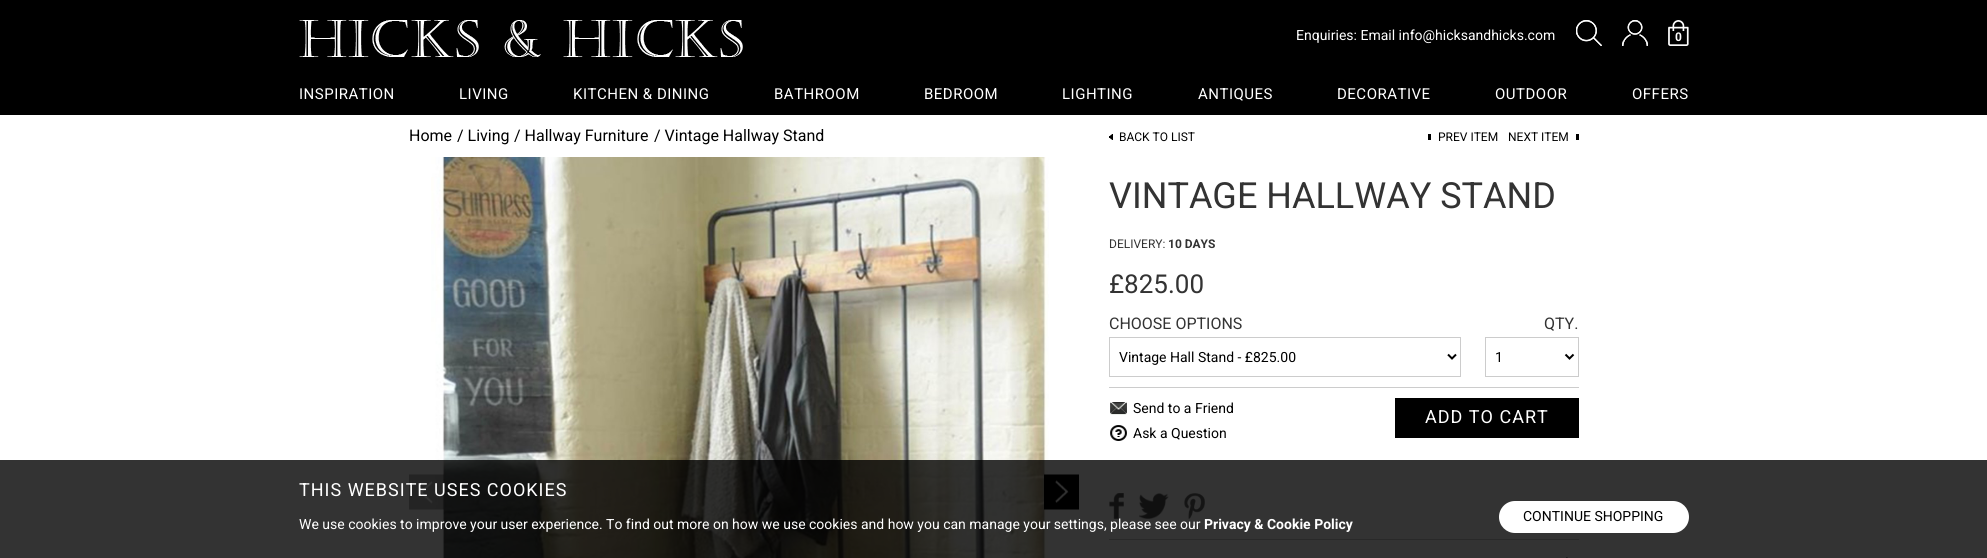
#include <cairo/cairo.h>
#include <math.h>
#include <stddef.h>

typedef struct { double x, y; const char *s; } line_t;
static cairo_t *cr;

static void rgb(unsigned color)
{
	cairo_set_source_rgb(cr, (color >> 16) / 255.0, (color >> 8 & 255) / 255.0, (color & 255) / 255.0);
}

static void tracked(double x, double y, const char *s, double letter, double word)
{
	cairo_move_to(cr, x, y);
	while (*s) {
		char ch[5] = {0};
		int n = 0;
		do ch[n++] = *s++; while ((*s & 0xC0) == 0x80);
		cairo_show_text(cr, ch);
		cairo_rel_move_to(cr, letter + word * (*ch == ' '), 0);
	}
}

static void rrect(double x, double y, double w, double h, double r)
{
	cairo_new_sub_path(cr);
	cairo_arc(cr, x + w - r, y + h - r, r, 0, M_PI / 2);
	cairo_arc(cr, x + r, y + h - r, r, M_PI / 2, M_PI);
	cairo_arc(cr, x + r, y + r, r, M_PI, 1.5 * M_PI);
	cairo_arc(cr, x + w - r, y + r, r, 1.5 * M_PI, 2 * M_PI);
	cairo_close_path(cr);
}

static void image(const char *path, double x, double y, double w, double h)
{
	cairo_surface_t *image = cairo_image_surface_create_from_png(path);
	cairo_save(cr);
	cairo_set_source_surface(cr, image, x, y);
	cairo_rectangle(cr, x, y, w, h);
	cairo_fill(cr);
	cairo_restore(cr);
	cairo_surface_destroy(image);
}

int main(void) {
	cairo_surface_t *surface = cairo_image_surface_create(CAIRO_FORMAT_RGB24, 1987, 558);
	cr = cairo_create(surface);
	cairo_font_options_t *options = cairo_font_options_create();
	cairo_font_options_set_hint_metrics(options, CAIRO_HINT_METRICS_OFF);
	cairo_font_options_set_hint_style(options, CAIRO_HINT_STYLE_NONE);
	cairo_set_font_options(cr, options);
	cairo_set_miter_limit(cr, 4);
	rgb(0xffffff);
	cairo_paint(cr);
	rgb(0x000000);
	cairo_rectangle(cr, 0, 0, 1987, 115);
	cairo_fill(cr);
	image("img/1.png", 299, 20, 444, 37);
	image("img/2.png", 1576, 20, 26, 26);
	image("img/3.png", 1622, 20, 26, 26);
	image("img/4.png", 1668, 20, 21, 26);
	image("img/5.png", 1109, 134, 4, 6);
	cairo_rectangle(cr, 1428, 134, 3, 6);
	cairo_fill(cr);
	cairo_rectangle(cr, 1576, 134, 3, 6);
	cairo_fill(cr);
	image("img/6.png", 431, 157, 618, 401);
	image("img/7.png", 409, 474, 35, 36);
	image("img/8.png", 1044, 474, 35, 36);
	cairo_rectangle(cr, 1109.5, 337.5, 351, 39);
	rgb(0xcccccc);
	cairo_set_line_width(cr, 1);
	cairo_stroke(cr);
	cairo_new_path(cr);
	cairo_move_to(cr, 1448, 354.5);
	cairo_line_to(cr, 1452, 358.5);
	cairo_line_to(cr, 1456, 354.5);
	rgb(0x000000);
	cairo_set_line_width(cr, 2);
	cairo_stroke(cr);
	cairo_rectangle(cr, 1485.5, 337.5, 93, 39);
	rgb(0xcccccc);
	cairo_set_line_width(cr, 1);
	cairo_stroke(cr);
	cairo_new_path(cr);
	cairo_move_to(cr, 1565.5, 354.5);
	cairo_line_to(cr, 1569.5, 358.5);
	cairo_line_to(cr, 1573.5, 354.5);
	rgb(0x000000);
	cairo_set_line_width(cr, 2);
	cairo_stroke(cr);
	rgb(0xcccccc);
	cairo_rectangle(cr, 1109, 387, 470, 1);
	cairo_fill(cr);
	image("img/9.png", 1110, 402, 17, 13);
	image("img/10.png", 1110, 425, 17, 16);
	rgb(0x000000);
	cairo_rectangle(cr, 1395, 398, 184, 40);
	cairo_fill(cr);
	image("img/11.png", 1109, 493, 15, 26);
	image("img/12.png", 1139, 493, 30, 26);
	image("img/13.png", 1184, 493, 21, 26);
	rgb(0xcccccc);
	cairo_rectangle(cr, 1109, 539, 470, 1);
	cairo_fill(cr);
	image("img/14.png", 1566, 557, 2, 1);
	cairo_set_source_rgba(cr, 0, 0, 0, 0.8);
	cairo_rectangle(cr, 0, 460, 1987, 98);
	cairo_fill(cr);
	rgb(0xffffff);
	rrect(1499, 501, 190, 32, 16);
	cairo_fill(cr);
	cairo_select_font_face(cr, "Roboto", CAIRO_FONT_SLANT_NORMAL, CAIRO_FONT_WEIGHT_NORMAL);
	cairo_set_font_size(cr, 14);
	cairo_move_to(cr, 1296, 40);
	cairo_show_text(cr, "Enquiries: Email info@hicksandhicks.com");
	cairo_select_font_face(cr, "Roboto", CAIRO_FONT_SLANT_NORMAL, CAIRO_FONT_WEIGHT_BOLD);
	cairo_set_font_size(cr, 12);
	cairo_move_to(cr, 1675, 41);
	cairo_show_text(cr, "0");
	cairo_select_font_face(cr, "Roboto", CAIRO_FONT_SLANT_NORMAL, CAIRO_FONT_WEIGHT_NORMAL);
	cairo_set_font_size(cr, 15);
	{
		static const line_t items[] = {
			{299, 99, "INSPIRATION"},
			{459, 99, "LIVING"},
			{573, 99, "KITCHEN & DINING"},
			{774, 99, "BATHROOM"},
			{924, 99, "BEDROOM"},
			{1062, 99, "LIGHTING"},
			{1198, 99, "ANTIQUES"},
			{1337, 99, "DECORATIVE"},
			{1495, 99, "OUTDOOR"},
			{1632, 99, "OFFERS"},
		};
		for (size_t i = 0; i < sizeof items / sizeof *items; i++) {
			tracked(items[i].x, items[i].y, items[i].s, 0.5, 0);
		}
	}
	cairo_set_font_size(cr, 16);
	rgb(0x000000);
	{
		static const line_t items[] = {
			{409, 141, "Home"},
			{457, 141, "/ Living"},
			{514, 141, "/ Hallway Furniture"},
			{654, 141, "/ Vintage Hallway Stand"},
		};
		for (size_t i = 0; i < sizeof items / sizeof *items; i++) {
			cairo_move_to(cr, items[i].x, items[i].y);
			cairo_show_text(cr, items[i].s);
		}
	}
	cairo_set_font_size(cr, 12);
	{
		static const line_t items[] = {
			{1119, 141, "BACK TO LIST"},
			{1438, 141, "PREV ITEM"},
			{1508, 141, "NEXT ITEM"},
		};
		for (size_t i = 0; i < sizeof items / sizeof *items; i++) {
			cairo_move_to(cr, items[i].x, items[i].y);
			cairo_show_text(cr, items[i].s);
		}
	}
	cairo_set_font_size(cr, 36);
	rgb(0x333333);
	cairo_move_to(cr, 1109, 208);
	cairo_show_text(cr, "VINTAGE HALLWAY STAND");
	cairo_set_font_size(cr, 12);
	cairo_move_to(cr, 1109, 248);
	cairo_show_text(cr, "DELIVERY:");
	cairo_select_font_face(cr, "Roboto", CAIRO_FONT_SLANT_NORMAL, CAIRO_FONT_WEIGHT_BOLD);
	cairo_move_to(cr, 1168, 248);
	cairo_show_text(cr, "10 DAYS");
	cairo_select_font_face(cr, "Roboto", CAIRO_FONT_SLANT_NORMAL, CAIRO_FONT_WEIGHT_NORMAL);
	cairo_set_font_size(cr, 26);
	cairo_move_to(cr, 1109, 293);
	cairo_show_text(cr, "£825.00");
	cairo_set_font_size(cr, 16);
	cairo_move_to(cr, 1109, 329);
	cairo_show_text(cr, "CHOOSE OPTIONS");
	cairo_move_to(cr, 1544, 329);
	cairo_show_text(cr, "QTY.");
	cairo_set_font_size(cr, 14);
	rgb(0x000000);
	{
		static const line_t items[] = {
			{1119, 362, "Vintage Hall Stand - £825.00"},
			{1495, 362, "1"},
			{1133, 413, "Send to a Friend"},
			{1133, 438, "Ask a Question"},
		};
		for (size_t i = 0; i < sizeof items / sizeof *items; i++) {
			cairo_move_to(cr, items[i].x, items[i].y);
			cairo_show_text(cr, items[i].s);
		}
	}
	cairo_set_font_size(cr, 18);
	rgb(0xffffff);
	tracked(1425, 423, "ADD TO CART", 1, 0);
	tracked(299, 496, "THIS WEBSITE USES COOKIES", 1, 0);
	cairo_set_font_size(cr, 14);
	rgb(0x000000);
	cairo_move_to(cr, 1523, 521);
	cairo_show_text(cr, "CONTINUE SHOPPING");
	rgb(0xffffff);
	cairo_move_to(cr, 299, 529);
	cairo_show_text(cr, "We use cookies to improve your user experience. To find out more on how we use cookies and how you can manage your settings, please see our");
	cairo_select_font_face(cr, "Roboto", CAIRO_FONT_SLANT_NORMAL, CAIRO_FONT_WEIGHT_BOLD);
	cairo_move_to(cr, 1204, 529);
	cairo_show_text(cr, "Privacy & Cookie Policy");
	cairo_surface_write_to_png(surface, "page.png");
	cairo_font_options_destroy(options);
	cairo_destroy(cr);
	cairo_surface_destroy(surface);
	return 0;
}
